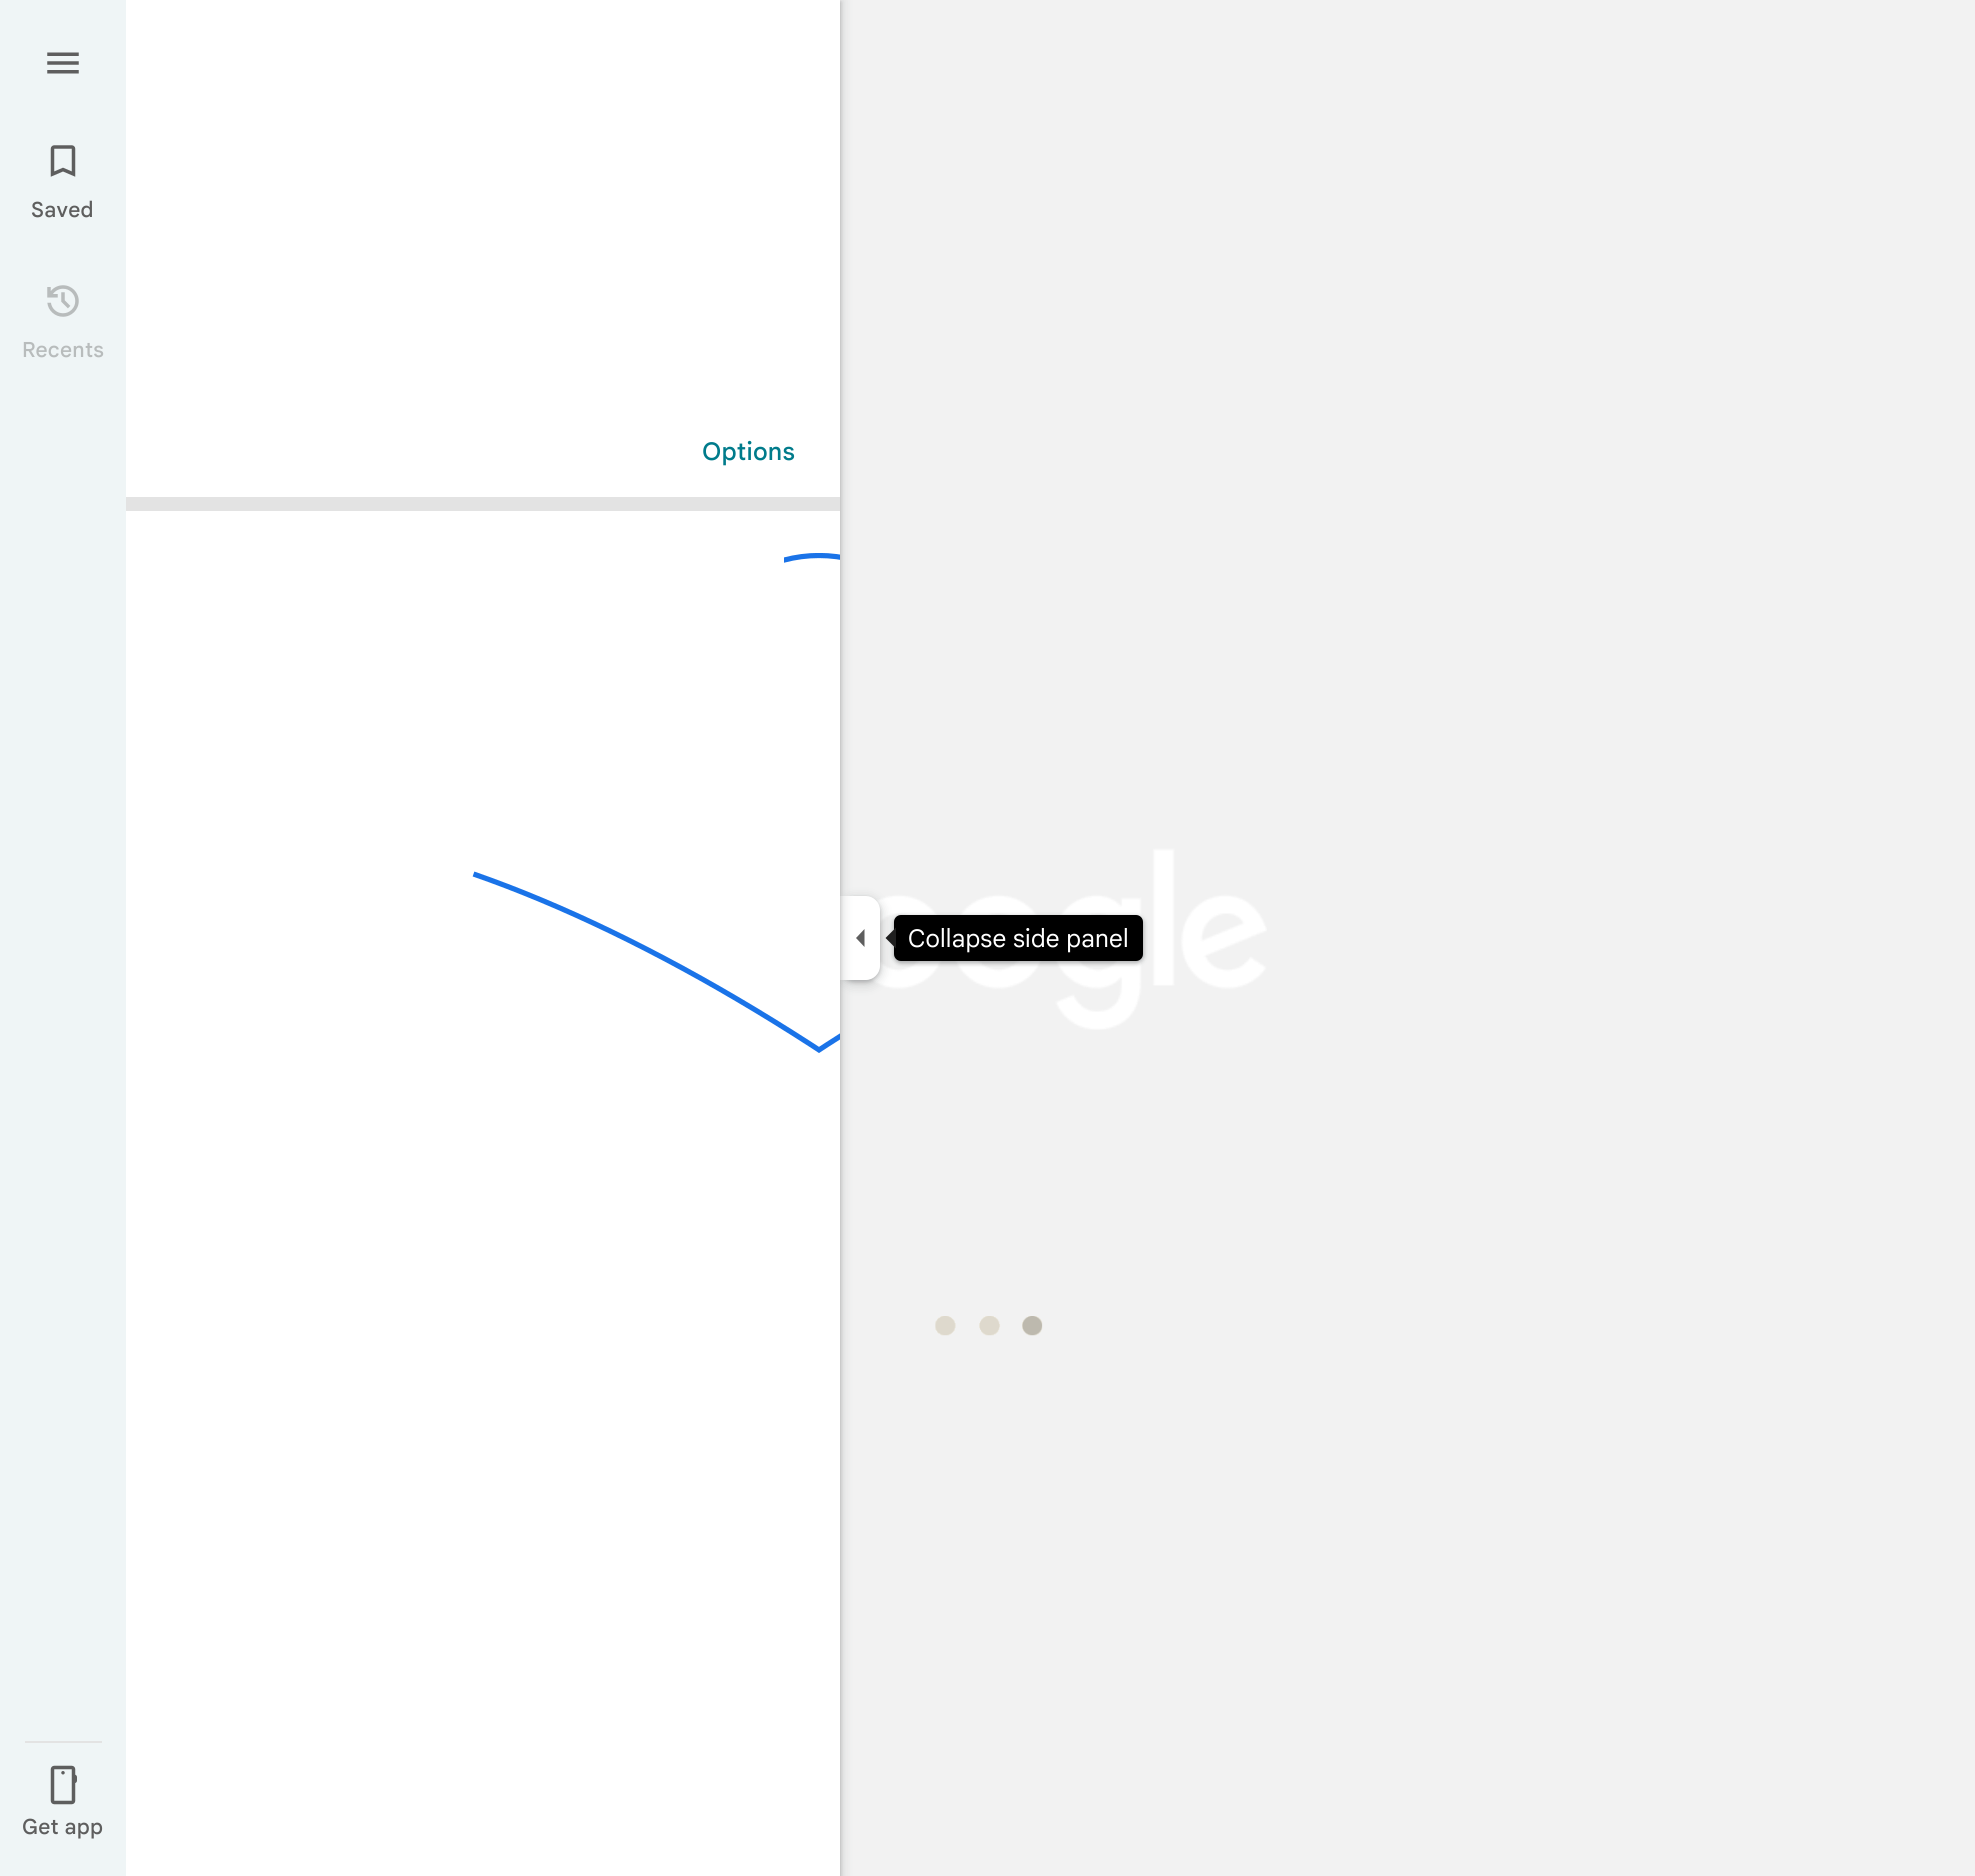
#include <cairo/cairo.h>
#include <math.h>
#include <stddef.h>

static cairo_t *cr;

static void rgb(unsigned color)
{
	cairo_set_source_rgb(cr, (color >> 16) / 255.0, (color >> 8 & 255) / 255.0, (color & 255) / 255.0);
}

static void tracked(double x, double y, const char *s, double letter, double word)
{
	cairo_move_to(cr, x, y);
	while (*s) {
		char ch[5] = {0};
		int n = 0;
		do ch[n++] = *s++; while ((*s & 0xC0) == 0x80);
		cairo_show_text(cr, ch);
		cairo_rel_move_to(cr, letter + word * (*ch == ' '), 0);
	}
}

static void rrect(double x, double y, double w, double h, double r)
{
	cairo_new_sub_path(cr);
	cairo_arc(cr, x + w - r, y + h - r, r, 0, M_PI / 2);
	cairo_arc(cr, x + r, y + h - r, r, M_PI / 2, M_PI);
	cairo_arc(cr, x + r, y + r, r, M_PI, 1.5 * M_PI);
	cairo_arc(cr, x + w - r, y + r, r, 1.5 * M_PI, 2 * M_PI);
	cairo_close_path(cr);
}

static void soft_shadow(double x, double y, double w, double h, double r, double blur, double alpha)
{
	cairo_push_group_with_content(cr, CAIRO_CONTENT_ALPHA);
	cairo_set_operator(cr, CAIRO_OPERATOR_SOURCE);
	for (int i = 15; i >= -15 && fmin(w, h) + blur * i / 3 > 0; i -= 2) {
		double e = blur * i / 6;
		cairo_set_source_rgba(cr, 0, 0, 0, alpha * erfc((i - 1) / 8.5) / 2);
		rrect(x - e, y - e, w + 2 * e, h + 2 * e, fmax(0, fmin(r + e + blur * .6, fmin(w, h) / 2 + e)));
		cairo_fill(cr);
	}
	cairo_pattern_t *soft = cairo_pop_group(cr);
	cairo_mask(cr, soft);
	cairo_pattern_destroy(soft);
}

static void image(const char *path, double x, double y, double w, double h)
{
	cairo_surface_t *image = cairo_image_surface_create_from_png(path);
	cairo_save(cr);
	cairo_set_source_surface(cr, image, x, y);
	cairo_rectangle(cr, x, y, w, h);
	cairo_fill(cr);
	cairo_restore(cr);
	cairo_surface_destroy(image);
}

int main(void) {
	cairo_surface_t *surface = cairo_image_surface_create(CAIRO_FORMAT_RGB24, 1975, 1876);
	cr = cairo_create(surface);
	cairo_font_options_t *options = cairo_font_options_create();
	cairo_font_options_set_hint_metrics(options, CAIRO_HINT_METRICS_OFF);
	cairo_font_options_set_hint_style(options, CAIRO_HINT_STYLE_NONE);
	cairo_set_font_options(cr, options);
	cairo_set_miter_limit(cr, 4);
	rgb(0xf2f2f2);
	cairo_paint(cr);
	image("img/5.png", 869, 848, 398, 182);
	rgb(0x3c4043);
	soft_shadow(837, 896, 47, 91, 18, 5, 0.15);
	soft_shadow(840, 898, 40, 84, 14, 2, 0.3);
	rgb(0xffffff);
	cairo_new_path(cr);
	cairo_move_to(cr, 840, 896);
	cairo_line_to(cr, 866, 896);
	cairo_curve_to(cr, 873.5, 896, 880, 902.5, 880, 910);
	cairo_line_to(cr, 880, 966);
	cairo_curve_to(cr, 880, 973.5, 873.5, 980, 866, 980);
	cairo_line_to(cr, 840, 980);
	cairo_close_path(cr);
	cairo_fill(cr);
	rgb(0x5e5e5e);
	cairo_new_path(cr);
	cairo_move_to(cr, 864.5, 947);
	cairo_line_to(cr, 856, 938);
	cairo_line_to(cr, 864.5, 929);
	cairo_close_path(cr);
	cairo_fill(cr);
	rgb(0x3c4043);
	soft_shadow(123, 0, 721, 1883, 0, 5, 0.15);
	soft_shadow(126, 2, 714, 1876, 0, 2, 0.3);
	rgb(0xeff5f6);
	cairo_rectangle(cr, 0, 0, 126, 1876);
	cairo_fill(cr);
	image("img/1.png", 47, 52, 32, 22);
	image("img/2.png", 50, 145, 26, 32);
	image("img/3.png", 47, 285, 32, 32);
	rgb(0xe3e3e3);
	cairo_rectangle(cr, 25, 1741, 77, 2);
	cairo_fill(cr);
	image("img/4.png", 50, 1765, 27, 40);
	rgb(0xffffff);
	cairo_rectangle(cr, 126, 0, 714, 1876);
	cairo_fill(cr);
	rgb(0xe3e3e3);
	cairo_rectangle(cr, 126, 497, 714, 14);
	cairo_fill(cr);
	cairo_save(cr);
	cairo_rectangle(cr, 784, 553, 56, 1323);
	cairo_clip(cr);
	cairo_new_path(cr);
	cairo_move_to(cr, 568.5, 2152.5);
	cairo_curve_to(cr, 502, 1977, 464.5, 1739, 464.5, 1491);
	cairo_curve_to(cr, 464.5, 1243, 502, 1005, 568.5, 829.5);
	cairo_curve_to(cr, 635, 654, 725, 555.5, 819, 555.5);
	cairo_curve_to(cr, 913, 555.5, 1003, 654, 1069.5, 829.5);
	cairo_curve_to(cr, 1136, 1005, 1173.5, 1243, 1173.5, 1491);
	cairo_curve_to(cr, 1173.5, 1739, 1136, 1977, 1069.5, 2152.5);
	rgb(0x1a73e8);
	cairo_set_line_width(cr, 5.2);
	cairo_stroke(cr);
	cairo_restore(cr);
	cairo_save(cr);
	cairo_rectangle(cr, 462, 553, 357, 1323);
	cairo_clip(cr);
	cairo_new_path(cr);
	cairo_move_to(cr, 473.5, 874);
	cairo_curve_to(cr, 650.5, 935.5, 857, 1060, 1047, 1219.5);
	cairo_curve_to(cr, 1237, 1379, 1395, 1560.5, 1486.5, 1724);
	cairo_curve_to(cr, 1578.5, 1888, 1596, 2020.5, 1535.5, 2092);
	cairo_curve_to(cr, 1475, 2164, 1341.5, 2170, 1164.5, 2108);
	rgb(0x1a73e8);
	cairo_set_line_width(cr, 5.2);
	cairo_stroke(cr);
	cairo_restore(cr);
	cairo_save(cr);
	cairo_rectangle(cr, 819, 553, 21, 1323);
	cairo_clip(cr);
	cairo_new_path(cr);
	cairo_move_to(cr, 473.5, 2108);
	cairo_curve_to(cr, 296.5, 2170, 163, 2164, 102.5, 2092);
	cairo_curve_to(cr, 42, 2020.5, 59.5, 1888, 151.5, 1724);
	cairo_curve_to(cr, 243, 1560.5, 401, 1379, 591, 1219.5);
	cairo_curve_to(cr, 781, 1060, 987.5, 935.5, 1164.5, 874);
	rgb(0x1a73e8);
	cairo_set_line_width(cr, 5.2);
	cairo_stroke(cr);
	cairo_restore(cr);
	rgb(0x3c4043);
	soft_shadow(893, 915, 252, 49, 9, 2.5, 0.15);
	soft_shadow(894, 917, 249, 46, 7, 2, 0.3);
	rgb(0x000000);
	rrect(894, 915, 249, 46, 7);
	cairo_fill(cr);
	rgb(0x1f1f1f);
	cairo_new_path(cr);
	cairo_move_to(cr, 896, 927.5);
	cairo_line_to(cr, 896, 948.5);
	cairo_line_to(cr, 885.5, 938);
	cairo_close_path(cr);
	cairo_fill(cr);
	image("img/6.png", 935, 1316, 108, 20);
	cairo_select_font_face(cr, "Google Sans Medium", CAIRO_FONT_SLANT_NORMAL, CAIRO_FONT_WEIGHT_NORMAL);
	cairo_set_font_size(cr, 21);
	rgb(0x5e5e5e);
	tracked(31, 217, "Saved", 0.25, 0);
	rgb(0xb8bcbc);
	tracked(22, 357, "Recents", 0.25, 0);
	rgb(0x5e5e5e);
	tracked(22, 1834, "Get app", 0.25, 0);
	cairo_set_font_size(cr, 24.5);
	rgb(0x007b8b);
	tracked(702, 460, "Options", 0.2, 0);
	cairo_select_font_face(cr, "Google Sans", CAIRO_FONT_SLANT_NORMAL, CAIRO_FONT_WEIGHT_NORMAL);
	rgb(0xffffff);
	tracked(908, 947, "Collapse side panel", 0.2, 0);
	cairo_surface_write_to_png(surface, "page.png");
	cairo_font_options_destroy(options);
	cairo_destroy(cr);
	cairo_surface_destroy(surface);
	return 0;
}
